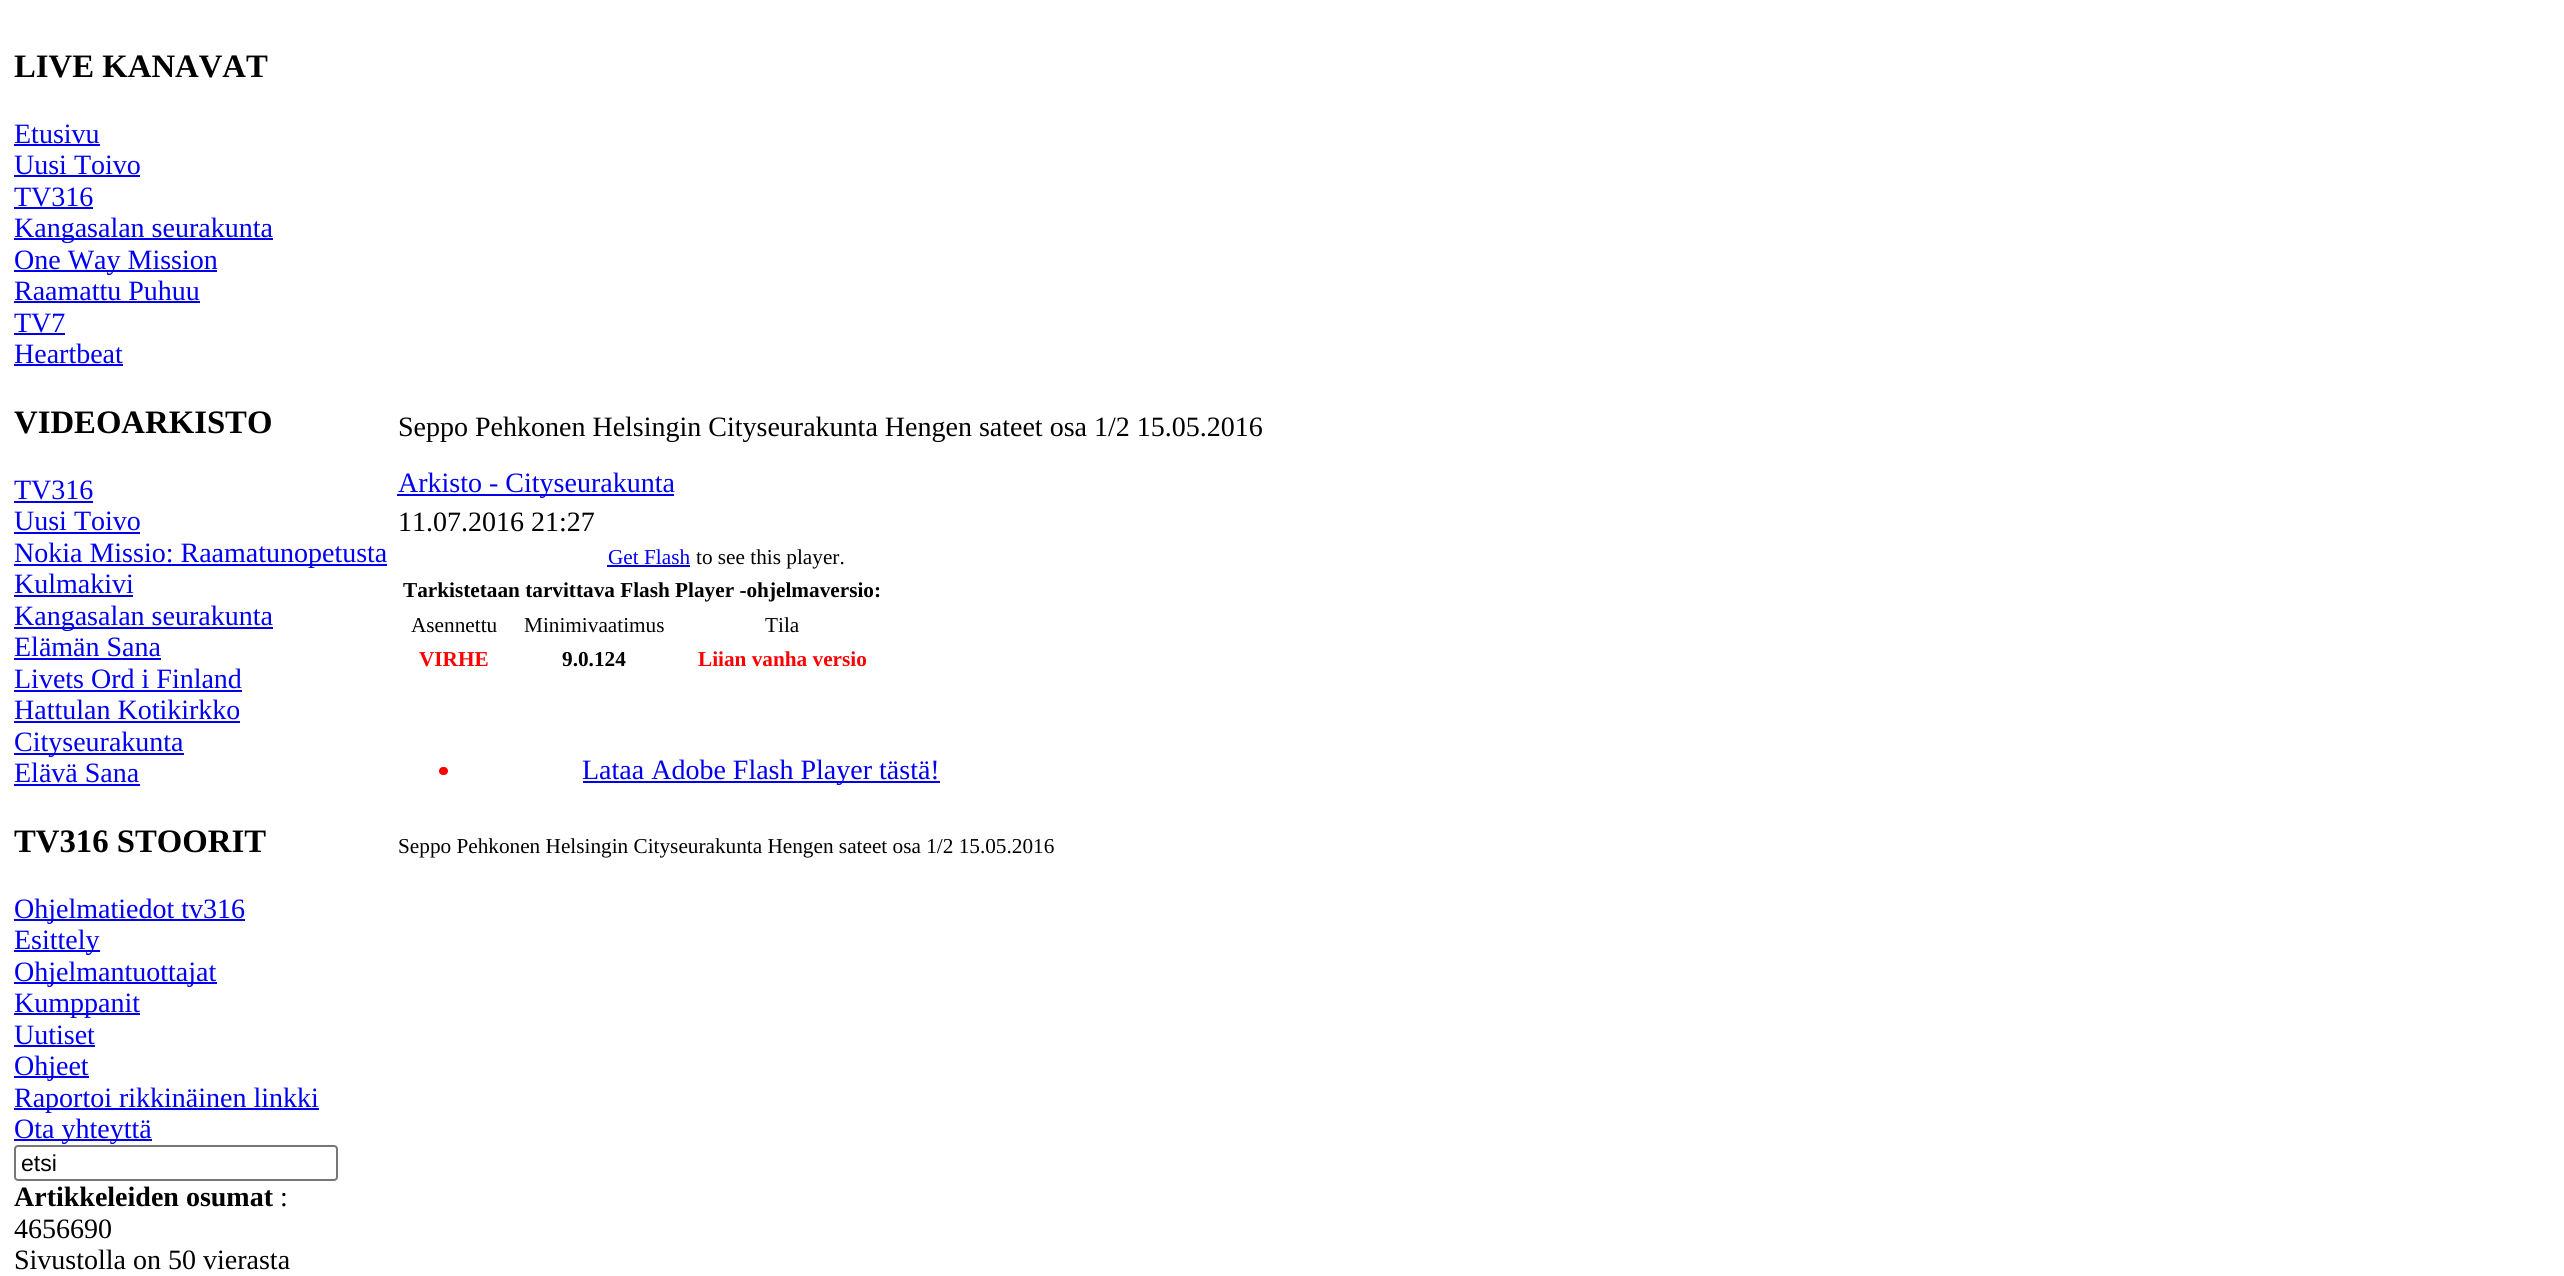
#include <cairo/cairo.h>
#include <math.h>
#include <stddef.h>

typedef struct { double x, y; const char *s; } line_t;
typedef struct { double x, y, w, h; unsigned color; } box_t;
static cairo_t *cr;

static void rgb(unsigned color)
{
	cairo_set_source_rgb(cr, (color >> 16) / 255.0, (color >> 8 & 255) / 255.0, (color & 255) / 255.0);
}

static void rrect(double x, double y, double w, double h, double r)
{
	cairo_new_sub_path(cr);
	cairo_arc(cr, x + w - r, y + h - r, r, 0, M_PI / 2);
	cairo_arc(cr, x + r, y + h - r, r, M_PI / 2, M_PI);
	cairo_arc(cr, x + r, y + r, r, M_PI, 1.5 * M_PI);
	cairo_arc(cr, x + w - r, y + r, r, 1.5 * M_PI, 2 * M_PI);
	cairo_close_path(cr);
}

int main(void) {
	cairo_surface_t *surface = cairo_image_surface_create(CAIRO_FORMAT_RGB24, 2564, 1276);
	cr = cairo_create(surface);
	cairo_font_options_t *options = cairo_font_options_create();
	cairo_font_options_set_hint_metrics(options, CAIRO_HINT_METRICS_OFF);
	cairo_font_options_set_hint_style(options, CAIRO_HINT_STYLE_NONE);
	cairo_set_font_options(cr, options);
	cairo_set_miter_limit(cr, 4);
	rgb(0xffffff);
	cairo_paint(cr);
	{
		static const box_t items[] = {
			{14, 144, 86, 2, 0x0000ee},
			{14, 175, 126, 2, 0x0000ee},
			{14, 207, 79, 2, 0x0000ee},
			{14, 238, 259, 2, 0x0000ee},
			{14, 270, 203, 2, 0x0000ee},
			{14, 301, 186, 2, 0x0000ee},
			{14, 333, 51, 2, 0x0000ee},
			{14, 364, 109, 2, 0x0000ee},
			{14, 501, 79, 2, 0x0000ee},
			{14, 532, 126, 2, 0x0000ee},
			{14, 564, 373, 2, 0x0000ee},
			{14, 595, 119, 2, 0x0000ee},
			{14, 627, 259, 2, 0x0000ee},
			{14, 658, 147, 2, 0x0000ee},
			{14, 690, 228, 2, 0x0000ee},
			{14, 721, 226, 2, 0x0000ee},
			{14, 753, 170, 2, 0x0000ee},
			{14, 784, 126, 2, 0x0000ee},
			{14, 919, 231, 2, 0x0000ee},
			{14, 950, 86, 2, 0x0000ee},
			{14, 982, 203, 2, 0x0000ee},
			{14, 1013, 126, 2, 0x0000ee},
			{14, 1045, 81, 2, 0x0000ee},
			{14, 1076, 75, 2, 0x0000ee},
			{14, 1108, 305, 2, 0x0000ee},
			{14, 1139, 138, 2, 0x0000ee},
		};
		for (size_t i = 0; i < sizeof items / sizeof *items; i++) {
			rgb(items[i].color);
			cairo_rectangle(cr, items[i].x, items[i].y, items[i].w, items[i].h);
			cairo_fill(cr);
		}
	}
	rrect(15, 1146, 322, 34, 3);
	rgb(0x767676);
	cairo_stroke(cr);
	rgb(0x0000ee);
	cairo_rectangle(cr, 397, 494, 277, 2);
	cairo_fill(cr);
	cairo_rectangle(cr, 607, 565, 83, 2);
	cairo_fill(cr);
	rgb(0xff0000);
	rrect(439, 767, 9, 8, 4);
	cairo_fill(cr);
	rgb(0x0000ee);
	cairo_rectangle(cr, 583, 781, 357, 2);
	cairo_fill(cr);
	cairo_select_font_face(cr, "Liberation Serif", CAIRO_FONT_SLANT_NORMAL, CAIRO_FONT_WEIGHT_BOLD);
	cairo_set_font_size(cr, 32.75);
	rgb(0x000000);
	cairo_move_to(cr, 14, 77);
	cairo_show_text(cr, "LIVE KANAVAT");
	cairo_select_font_face(cr, "Liberation Serif", CAIRO_FONT_SLANT_NORMAL, CAIRO_FONT_WEIGHT_NORMAL);
	cairo_set_font_size(cr, 28);
	rgb(0x0000ee);
	{
		static const line_t items[] = {
			{14, 143, "Etusivu"},
			{14, 174, "Uusi Toivo"},
			{14, 206, "TV316"},
			{14, 237, "Kangasalan seurakunta"},
			{14, 269, "One Way Mission"},
			{14, 300, "Raamattu Puhuu"},
			{14, 332, "TV7"},
			{14, 363, "Heartbeat"},
		};
		for (size_t i = 0; i < sizeof items / sizeof *items; i++) {
			cairo_move_to(cr, items[i].x, items[i].y);
			cairo_show_text(cr, items[i].s);
		}
	}
	cairo_select_font_face(cr, "Liberation Serif", CAIRO_FONT_SLANT_NORMAL, CAIRO_FONT_WEIGHT_BOLD);
	cairo_set_font_size(cr, 32.75);
	rgb(0x000000);
	cairo_move_to(cr, 14, 433);
	cairo_show_text(cr, "VIDEOARKISTO");
	cairo_select_font_face(cr, "Liberation Serif", CAIRO_FONT_SLANT_NORMAL, CAIRO_FONT_WEIGHT_NORMAL);
	cairo_set_font_size(cr, 28);
	rgb(0x0000ee);
	{
		static const line_t items[] = {
			{14, 499, "TV316"},
			{14, 530, "Uusi Toivo"},
			{14, 562, "Nokia Missio: Raamatunopetusta"},
			{14, 593, "Kulmakivi"},
			{14, 625, "Kangasalan seurakunta"},
			{14, 656, "Elämän Sana"},
			{14, 688, "Livets Ord i Finland"},
			{14, 719, "Hattulan Kotikirkko"},
			{14, 751, "Cityseurakunta"},
			{14, 782, "Elävä Sana"},
		};
		for (size_t i = 0; i < sizeof items / sizeof *items; i++) {
			cairo_move_to(cr, items[i].x, items[i].y);
			cairo_show_text(cr, items[i].s);
		}
	}
	cairo_select_font_face(cr, "Liberation Serif", CAIRO_FONT_SLANT_NORMAL, CAIRO_FONT_WEIGHT_BOLD);
	cairo_set_font_size(cr, 32.75);
	rgb(0x000000);
	cairo_move_to(cr, 14, 852);
	cairo_show_text(cr, "TV316 STOORIT");
	cairo_select_font_face(cr, "Liberation Serif", CAIRO_FONT_SLANT_NORMAL, CAIRO_FONT_WEIGHT_NORMAL);
	cairo_set_font_size(cr, 28);
	rgb(0x0000ee);
	{
		static const line_t items[] = {
			{14, 918, "Ohjelmatiedot tv316"},
			{14, 949, "Esittely"},
			{14, 981, "Ohjelmantuottajat"},
			{14, 1012, "Kumppanit"},
			{14, 1044, "Uutiset"},
			{14, 1075, "Ohjeet"},
			{14, 1107, "Raportoi rikkinäinen linkki"},
			{14, 1138, "Ota yhteyttä"},
		};
		for (size_t i = 0; i < sizeof items / sizeof *items; i++) {
			cairo_move_to(cr, items[i].x, items[i].y);
			cairo_show_text(cr, items[i].s);
		}
	}
	cairo_select_font_face(cr, "Liberation Sans", CAIRO_FONT_SLANT_NORMAL, CAIRO_FONT_WEIGHT_NORMAL);
	cairo_set_font_size(cr, 23);
	rgb(0x000000);
	cairo_move_to(cr, 21, 1171);
	cairo_show_text(cr, "etsi");
	cairo_select_font_face(cr, "Liberation Serif", CAIRO_FONT_SLANT_NORMAL, CAIRO_FONT_WEIGHT_BOLD);
	cairo_set_font_size(cr, 28);
	cairo_move_to(cr, 14, 1206);
	cairo_show_text(cr, "Artikkeleiden osumat");
	cairo_select_font_face(cr, "Liberation Serif", CAIRO_FONT_SLANT_NORMAL, CAIRO_FONT_WEIGHT_NORMAL);
	{
		static const line_t items[] = {
			{280, 1206, ":"},
			{14, 1238, "4656690"},
			{14, 1269, "Sivustolla on 50 vierasta"},
			{398, 436, "Seppo Pehkonen Helsingin Cityseurakunta Hengen sateet osa 1/2 15.05.2016"},
		};
		for (size_t i = 0; i < sizeof items / sizeof *items; i++) {
			cairo_move_to(cr, items[i].x, items[i].y);
			cairo_show_text(cr, items[i].s);
		}
	}
	rgb(0x0000ee);
	cairo_move_to(cr, 398, 492);
	cairo_show_text(cr, "Arkisto - Cityseurakunta");
	rgb(0x000000);
	cairo_move_to(cr, 398, 531);
	cairo_show_text(cr, "11.07.2016 21:27");
	cairo_set_font_size(cr, 21.25);
	rgb(0x0000ee);
	cairo_move_to(cr, 608, 564);
	cairo_show_text(cr, "Get Flash");
	rgb(0x000000);
	cairo_move_to(cr, 696, 564);
	cairo_show_text(cr, "to see this player.");
	cairo_select_font_face(cr, "Liberation Serif", CAIRO_FONT_SLANT_NORMAL, CAIRO_FONT_WEIGHT_BOLD);
	cairo_move_to(cr, 403, 597);
	cairo_show_text(cr, "Tarkistetaan tarvittava Flash Player -ohjelmaversio:");
	cairo_select_font_face(cr, "Liberation Serif", CAIRO_FONT_SLANT_NORMAL, CAIRO_FONT_WEIGHT_NORMAL);
	{
		static const line_t items[] = {
			{411, 632, "Asennettu"},
			{524, 632, "Minimivaatimus"},
			{765, 632, "Tila"},
		};
		for (size_t i = 0; i < sizeof items / sizeof *items; i++) {
			cairo_move_to(cr, items[i].x, items[i].y);
			cairo_show_text(cr, items[i].s);
		}
	}
	cairo_select_font_face(cr, "Liberation Serif", CAIRO_FONT_SLANT_NORMAL, CAIRO_FONT_WEIGHT_BOLD);
	rgb(0xff0000);
	cairo_move_to(cr, 419, 666);
	cairo_show_text(cr, "VIRHE");
	rgb(0x000000);
	cairo_move_to(cr, 562, 666);
	cairo_show_text(cr, "9.0.124");
	rgb(0xff0000);
	cairo_move_to(cr, 698, 666);
	cairo_show_text(cr, "Liian vanha versio");
	cairo_select_font_face(cr, "Liberation Serif", CAIRO_FONT_SLANT_NORMAL, CAIRO_FONT_WEIGHT_NORMAL);
	cairo_set_font_size(cr, 28);
	rgb(0x0000ee);
	cairo_move_to(cr, 582, 779);
	cairo_show_text(cr, "Lataa Adobe Flash Player tästä!");
	cairo_set_font_size(cr, 21.25);
	rgb(0x000000);
	cairo_move_to(cr, 398, 853);
	cairo_show_text(cr, "Seppo Pehkonen Helsingin Cityseurakunta Hengen sateet osa 1/2 15.05.2016");
	cairo_surface_write_to_png(surface, "page.png");
	cairo_font_options_destroy(options);
	cairo_destroy(cr);
	cairo_surface_destroy(surface);
	return 0;
}
